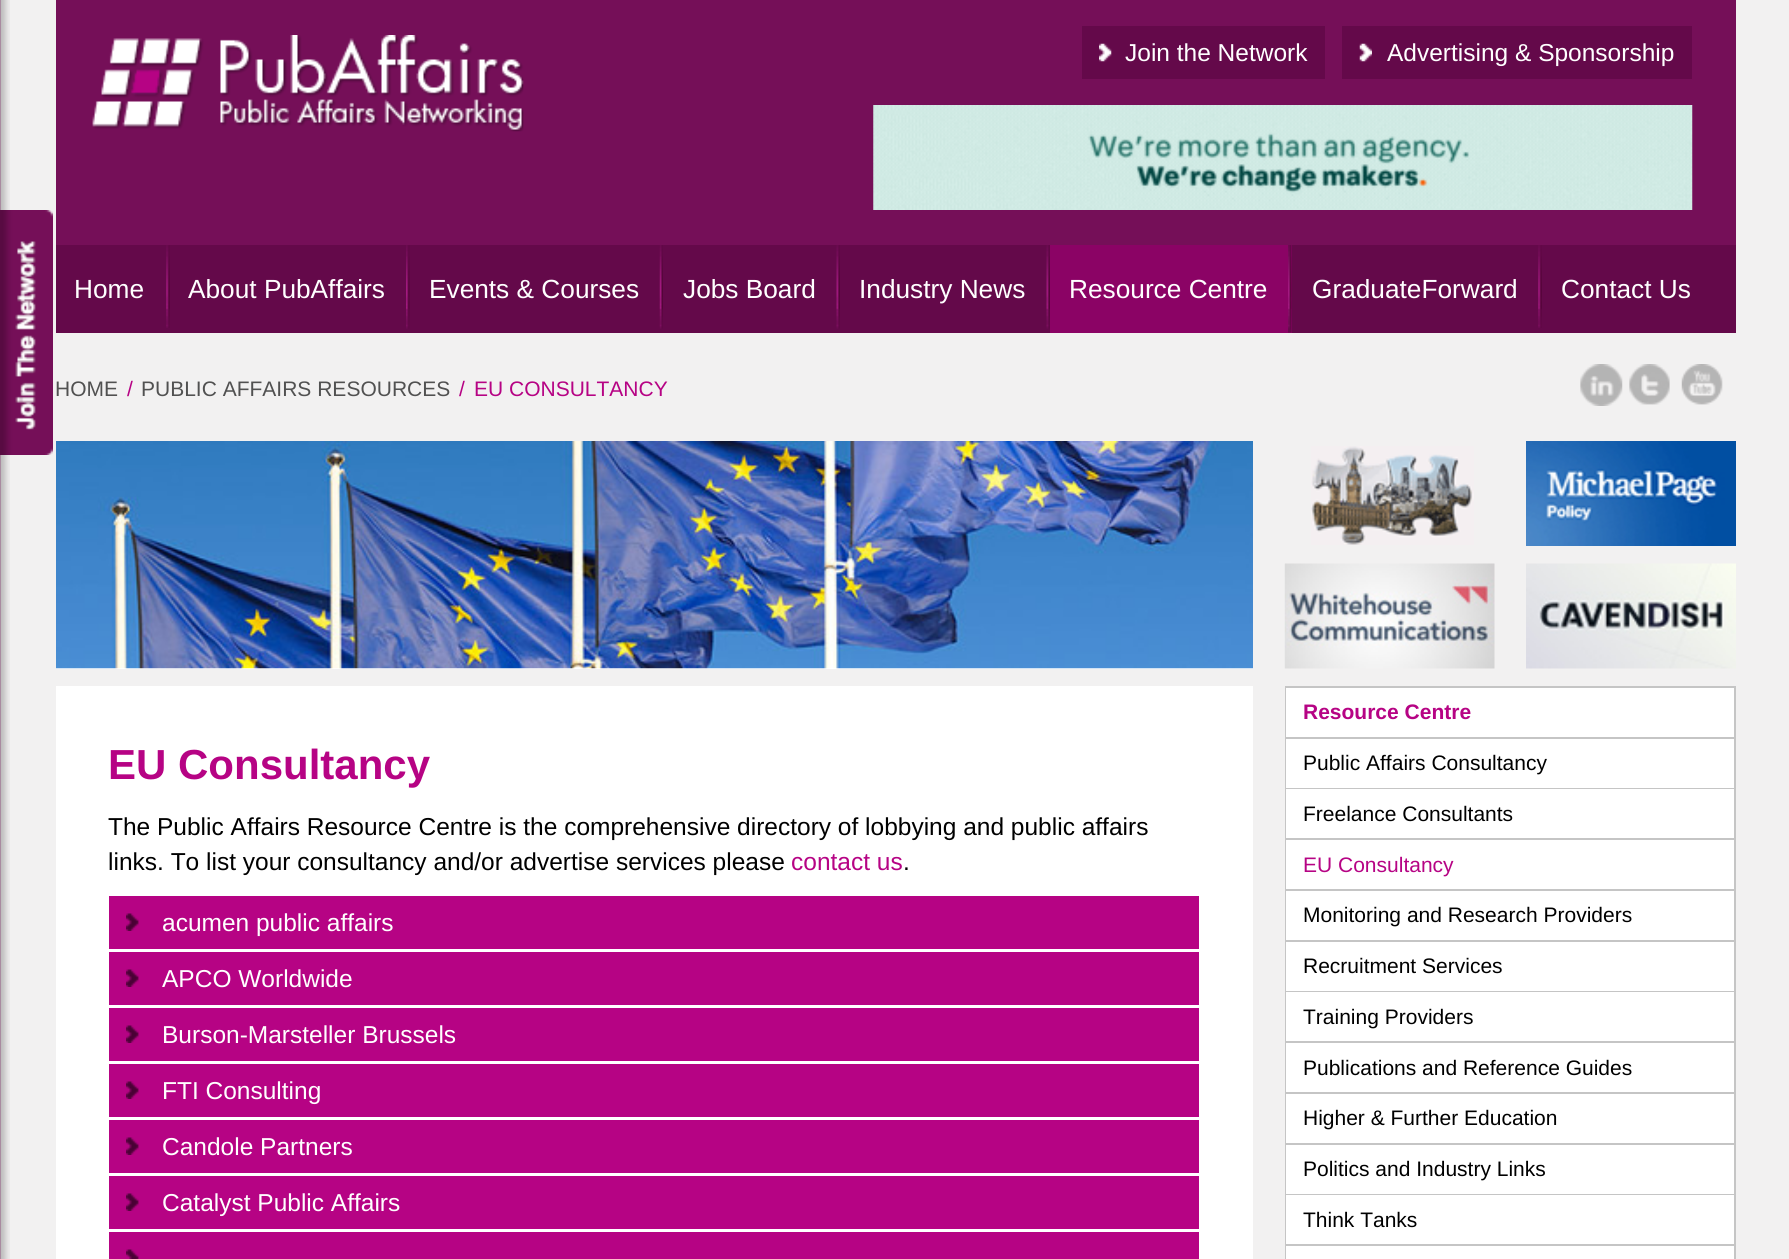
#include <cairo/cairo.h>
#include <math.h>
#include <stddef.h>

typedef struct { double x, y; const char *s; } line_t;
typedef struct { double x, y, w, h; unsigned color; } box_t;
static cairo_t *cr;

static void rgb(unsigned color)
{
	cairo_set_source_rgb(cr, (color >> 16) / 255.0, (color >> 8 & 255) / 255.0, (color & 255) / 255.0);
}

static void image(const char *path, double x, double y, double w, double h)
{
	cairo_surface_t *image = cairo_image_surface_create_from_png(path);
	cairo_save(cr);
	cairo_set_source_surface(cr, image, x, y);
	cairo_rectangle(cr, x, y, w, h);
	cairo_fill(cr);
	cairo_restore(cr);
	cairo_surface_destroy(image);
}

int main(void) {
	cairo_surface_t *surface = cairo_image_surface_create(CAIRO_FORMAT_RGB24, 1789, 1259);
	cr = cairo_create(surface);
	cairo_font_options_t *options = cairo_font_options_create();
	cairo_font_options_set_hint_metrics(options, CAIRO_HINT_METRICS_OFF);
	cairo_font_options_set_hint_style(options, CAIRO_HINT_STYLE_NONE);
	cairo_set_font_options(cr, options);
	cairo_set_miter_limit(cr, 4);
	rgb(0xf2f1f1);
	cairo_paint(cr);
	image("img/1.png", 0, 0, 10, 1259);
	image("img/2.png", 0, 210, 53, 245);
	rgb(0x750f58);
	cairo_rectangle(cr, 56, 0, 1680, 245);
	cairo_fill(cr);
	image("img/3.png", 92, 35, 432, 97);
	rgb(0x64094a);
	cairo_rectangle(cr, 1082, 26, 243, 53);
	cairo_fill(cr);
	image("img/4.png", 1099, 43, 13, 19);
	cairo_rectangle(cr, 1342, 26, 350, 53);
	cairo_fill(cr);
	image("img/5.png", 1359, 43, 13, 19);
	image("img/6.png", 873, 105, 820, 105);
	cairo_rectangle(cr, 56, 245, 1680, 88);
	cairo_fill(cr);
	image("img/7.png", 166, 245, 4, 83);
	image("img/8.png", 406, 245, 4, 84);
	image("img/9.png", 659, 245, 4, 84);
	image("img/10.png", 836, 245, 4, 84);
	image("img/10.png", 1046, 245, 4, 84);
	rgb(0x8b0365);
	cairo_rectangle(cr, 1050, 245, 242, 88);
	cairo_fill(cr);
	image("img/11.png", 1288, 245, 4, 88);
	image("img/7.png", 1538, 245, 4, 83);
	image("img/12.png", 1580, 364, 43, 42);
	image("img/13.png", 1629, 364, 41, 41);
	image("img/14.png", 1681, 364, 42, 41);
	rgb(0xffffff);
	cairo_rectangle(cr, 56, 668, 1197, 1);
	cairo_fill(cr);
	image("img/15.png", 56, 441, 1197, 228);
	cairo_rectangle(cr, 56, 686, 1197, 573);
	cairo_fill(cr);
	rgb(0xb60384);
	cairo_rectangle(cr, 109, 896, 1090, 53);
	cairo_fill(cr);
	image("img/16.png", 126, 913, 13, 18);
	cairo_rectangle(cr, 109, 952, 1090, 53);
	cairo_fill(cr);
	image("img/16.png", 126, 969, 13, 18);
	cairo_rectangle(cr, 109, 1008, 1090, 53);
	cairo_fill(cr);
	image("img/16.png", 126, 1025, 13, 18);
	cairo_rectangle(cr, 109, 1064, 1090, 53);
	cairo_fill(cr);
	image("img/16.png", 126, 1081, 13, 18);
	cairo_rectangle(cr, 109, 1120, 1090, 53);
	cairo_fill(cr);
	image("img/16.png", 126, 1137, 13, 18);
	cairo_rectangle(cr, 109, 1176, 1090, 53);
	cairo_fill(cr);
	image("img/16.png", 126, 1193, 13, 18);
	cairo_rectangle(cr, 109, 1232, 1090, 27);
	cairo_fill(cr);
	image("img/17.png", 126, 1249, 13, 10);
	image("img/18.png", 1311, 446, 163, 99);
	image("img/19.png", 1526, 441, 210, 105);
	image("img/20.png", 1284, 563, 211, 106);
	image("img/21.png", 1526, 563, 210, 106);
	cairo_rectangle(cr, 1286, 687, 449, 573);
	rgb(0xc5c5c5);
	cairo_stroke(cr);
	{
		static const box_t items[] = {
			{1286, 688, 448, 49, 0xffffff},
			{1286, 737, 448, 2, 0xc5c5c5},
			{1286, 739, 448, 49, 0xffffff},
			{1286, 788, 448, 1, 0xc5c5c5},
			{1286, 789, 448, 49, 0xffffff},
			{1286, 838, 448, 2, 0xc5c5c5},
			{1286, 840, 448, 49, 0xffffff},
			{1286, 889, 448, 2, 0xc5c5c5},
			{1286, 891, 448, 49, 0xffffff},
			{1286, 940, 448, 2, 0xc5c5c5},
			{1286, 942, 448, 49, 0xffffff},
			{1286, 991, 448, 1, 0xc5c5c5},
			{1286, 992, 448, 49, 0xffffff},
			{1286, 1041, 448, 2, 0xc5c5c5},
			{1286, 1043, 448, 49, 0xffffff},
			{1286, 1092, 448, 2, 0xc5c5c5},
			{1286, 1094, 448, 49, 0xffffff},
			{1286, 1143, 448, 2, 0xc5c5c5},
			{1286, 1145, 448, 49, 0xffffff},
			{1286, 1194, 448, 1, 0xc5c5c5},
			{1286, 1195, 448, 49, 0xffffff},
			{1286, 1244, 448, 2, 0xc5c5c5},
			{1286, 1246, 448, 13, 0xffffff},
		};
		for (size_t i = 0; i < sizeof items / sizeof *items; i++) {
			rgb(items[i].color);
			cairo_rectangle(cr, items[i].x, items[i].y, items[i].w, items[i].h);
			cairo_fill(cr);
		}
	}
	cairo_select_font_face(cr, "Liberation Sans", CAIRO_FONT_SLANT_NORMAL, CAIRO_FONT_WEIGHT_NORMAL);
	cairo_set_font_size(cr, 24.5);
	cairo_move_to(cr, 1125, 61);
	cairo_show_text(cr, "Join the Network");
	cairo_move_to(cr, 1387, 61);
	cairo_show_text(cr, "Advertising & Sponsorship");
	cairo_set_font_size(cr, 26.25);
	{
		static const line_t items[] = {
			{74, 298, "Home"},
			{188, 298, "About PubAffairs"},
			{429, 298, "Events & Courses"},
			{683, 298, "Jobs Board"},
			{859, 298, "Industry News"},
			{1069, 298, "Resource Centre"},
			{1312, 298, "GraduateForward"},
			{1561, 298, "Contact Us"},
		};
		for (size_t i = 0; i < sizeof items / sizeof *items; i++) {
			cairo_move_to(cr, items[i].x, items[i].y);
			cairo_show_text(cr, items[i].s);
		}
	}
	cairo_set_font_size(cr, 21);
	rgb(0x515151);
	cairo_move_to(cr, 55, 396);
	cairo_show_text(cr, "HOME");
	rgb(0xb60384);
	cairo_move_to(cr, 127, 396);
	cairo_show_text(cr, "/");
	rgb(0x515151);
	cairo_move_to(cr, 141, 396);
	cairo_show_text(cr, "PUBLIC AFFAIRS RESOURCES");
	rgb(0xb60384);
	cairo_move_to(cr, 459, 396);
	cairo_show_text(cr, "/");
	cairo_move_to(cr, 474, 396);
	cairo_show_text(cr, "EU CONSULTANCY");
	cairo_select_font_face(cr, "Liberation Sans", CAIRO_FONT_SLANT_NORMAL, CAIRO_FONT_WEIGHT_BOLD);
	cairo_set_font_size(cr, 42);
	cairo_move_to(cr, 108, 779);
	cairo_show_text(cr, "EU Consultancy");
	cairo_select_font_face(cr, "Liberation Sans", CAIRO_FONT_SLANT_NORMAL, CAIRO_FONT_WEIGHT_NORMAL);
	cairo_set_font_size(cr, 24.5);
	rgb(0x000000);
	cairo_move_to(cr, 108, 835);
	cairo_show_text(cr, "The Public Affairs Resource Centre is the comprehensive directory of lobbying and public affairs");
	cairo_move_to(cr, 108, 870);
	cairo_show_text(cr, "links. To list your consultancy and/or advertise services please");
	rgb(0xb60384);
	cairo_move_to(cr, 791, 870);
	cairo_show_text(cr, "contact us");
	rgb(0x000000);
	cairo_move_to(cr, 903, 870);
	cairo_show_text(cr, ".");
	rgb(0xffffff);
	{
		static const line_t items[] = {
			{162, 931, "acumen public affairs"},
			{162, 987, "APCO Worldwide"},
			{162, 1043, "Burson-Marsteller Brussels"},
			{162, 1099, "FTI Consulting"},
			{162, 1155, "Candole Partners"},
			{162, 1211, "Catalyst Public Affairs"},
		};
		for (size_t i = 0; i < sizeof items / sizeof *items; i++) {
			cairo_move_to(cr, items[i].x, items[i].y);
			cairo_show_text(cr, items[i].s);
		}
	}
	cairo_select_font_face(cr, "Liberation Sans", CAIRO_FONT_SLANT_NORMAL, CAIRO_FONT_WEIGHT_BOLD);
	cairo_set_font_size(cr, 21);
	rgb(0xb60384);
	cairo_move_to(cr, 1303, 719);
	cairo_show_text(cr, "Resource Centre");
	cairo_select_font_face(cr, "Liberation Sans", CAIRO_FONT_SLANT_NORMAL, CAIRO_FONT_WEIGHT_NORMAL);
	rgb(0x000000);
	cairo_move_to(cr, 1303, 770);
	cairo_show_text(cr, "Public Affairs Consultancy");
	cairo_move_to(cr, 1303, 821);
	cairo_show_text(cr, "Freelance Consultants");
	rgb(0xb60384);
	cairo_move_to(cr, 1303, 872);
	cairo_show_text(cr, "EU Consultancy");
	rgb(0x000000);
	{
		static const line_t items[] = {
			{1303, 922, "Monitoring and Research Providers"},
			{1303, 973, "Recruitment Services"},
			{1303, 1024, "Training Providers"},
			{1303, 1075, "Publications and Reference Guides"},
			{1303, 1125, "Higher & Further Education"},
			{1303, 1176, "Politics and Industry Links"},
			{1303, 1227, "Think Tanks"},
		};
		for (size_t i = 0; i < sizeof items / sizeof *items; i++) {
			cairo_move_to(cr, items[i].x, items[i].y);
			cairo_show_text(cr, items[i].s);
		}
	}
	cairo_surface_write_to_png(surface, "page.png");
	cairo_font_options_destroy(options);
	cairo_destroy(cr);
	cairo_surface_destroy(surface);
	return 0;
}
